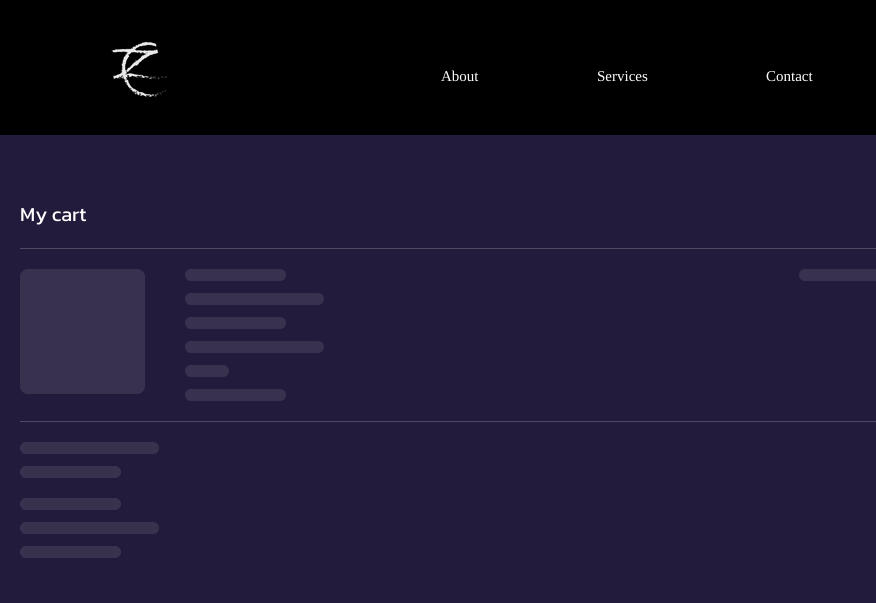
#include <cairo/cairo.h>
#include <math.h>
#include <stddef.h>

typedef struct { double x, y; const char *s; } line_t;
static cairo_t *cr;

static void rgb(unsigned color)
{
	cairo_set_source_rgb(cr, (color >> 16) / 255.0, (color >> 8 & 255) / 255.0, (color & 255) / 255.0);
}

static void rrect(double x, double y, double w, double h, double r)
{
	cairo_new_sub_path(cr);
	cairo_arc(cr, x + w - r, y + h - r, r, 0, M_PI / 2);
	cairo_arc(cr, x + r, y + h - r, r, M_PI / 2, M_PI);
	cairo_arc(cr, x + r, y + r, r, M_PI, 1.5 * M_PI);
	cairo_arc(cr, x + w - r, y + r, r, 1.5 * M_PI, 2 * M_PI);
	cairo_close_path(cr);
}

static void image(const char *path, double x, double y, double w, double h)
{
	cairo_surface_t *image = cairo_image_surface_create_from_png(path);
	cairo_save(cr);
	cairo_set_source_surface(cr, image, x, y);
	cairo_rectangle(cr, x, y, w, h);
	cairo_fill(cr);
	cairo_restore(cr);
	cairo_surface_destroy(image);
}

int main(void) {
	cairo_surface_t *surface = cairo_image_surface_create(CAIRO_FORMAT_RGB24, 876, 603);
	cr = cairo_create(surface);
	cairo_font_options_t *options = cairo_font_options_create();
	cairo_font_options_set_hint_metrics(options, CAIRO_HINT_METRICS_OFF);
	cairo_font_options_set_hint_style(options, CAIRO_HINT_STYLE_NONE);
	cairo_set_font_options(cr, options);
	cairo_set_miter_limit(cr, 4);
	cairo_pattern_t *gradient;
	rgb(0x231b3b);
	cairo_paint(cr);
	rgb(0x000000);
	cairo_rectangle(cr, 0, 0, 876, 135);
	cairo_fill(cr);
	image("img/1.png", 111, 41, 60, 57);
	rgb(0x4f4962);
	cairo_rectangle(cr, 20, 248, 856, 1);
	cairo_fill(cr);
	gradient = cairo_pattern_create_linear(20, 332, 520, 332);
	cairo_pattern_add_color_stop_rgba(gradient, 0.25, 0.224, 0.196, 0.31, 1);
	cairo_pattern_add_color_stop_rgba(gradient, 0.37, 0.31, 0.286, 0.384, 1);
	cairo_pattern_add_color_stop_rgba(gradient, 0.63, 0.224, 0.196, 0.31, 1);
	cairo_set_source(cr, gradient);
	cairo_pattern_destroy(gradient);
	rrect(20, 269, 125, 125, 8);
	cairo_fill(cr);
	gradient = cairo_pattern_create_linear(185, 275, 589, 275);
	cairo_pattern_add_color_stop_rgba(gradient, 0.25, 0.224, 0.196, 0.31, 1);
	cairo_pattern_add_color_stop_rgba(gradient, 0.37, 0.31, 0.286, 0.384, 1);
	cairo_pattern_add_color_stop_rgba(gradient, 0.63, 0.224, 0.196, 0.31, 1);
	cairo_set_source(cr, gradient);
	cairo_pattern_destroy(gradient);
	rrect(185, 269, 101, 12, 6);
	cairo_fill(cr);
	gradient = cairo_pattern_create_linear(185, 299, 741, 299);
	cairo_pattern_add_color_stop_rgba(gradient, 0.25, 0.224, 0.196, 0.31, 1);
	cairo_pattern_add_color_stop_rgba(gradient, 0.37, 0.31, 0.286, 0.384, 1);
	cairo_pattern_add_color_stop_rgba(gradient, 0.63, 0.224, 0.196, 0.31, 1);
	cairo_set_source(cr, gradient);
	cairo_pattern_destroy(gradient);
	rrect(185, 293, 139, 12, 6);
	cairo_fill(cr);
	gradient = cairo_pattern_create_linear(185, 323, 589, 323);
	cairo_pattern_add_color_stop_rgba(gradient, 0.25, 0.224, 0.196, 0.31, 1);
	cairo_pattern_add_color_stop_rgba(gradient, 0.37, 0.31, 0.286, 0.384, 1);
	cairo_pattern_add_color_stop_rgba(gradient, 0.63, 0.224, 0.196, 0.31, 1);
	cairo_set_source(cr, gradient);
	cairo_pattern_destroy(gradient);
	rrect(185, 317, 101, 12, 6);
	cairo_fill(cr);
	gradient = cairo_pattern_create_linear(185, 347, 741, 347);
	cairo_pattern_add_color_stop_rgba(gradient, 0.25, 0.224, 0.196, 0.31, 1);
	cairo_pattern_add_color_stop_rgba(gradient, 0.37, 0.31, 0.286, 0.384, 1);
	cairo_pattern_add_color_stop_rgba(gradient, 0.63, 0.224, 0.196, 0.31, 1);
	cairo_set_source(cr, gradient);
	cairo_pattern_destroy(gradient);
	rrect(185, 341, 139, 12, 6);
	cairo_fill(cr);
	gradient = cairo_pattern_create_linear(185, 371, 361, 371);
	cairo_pattern_add_color_stop_rgba(gradient, 0.25, 0.224, 0.196, 0.31, 1);
	cairo_pattern_add_color_stop_rgba(gradient, 0.37, 0.31, 0.286, 0.384, 1);
	cairo_pattern_add_color_stop_rgba(gradient, 0.63, 0.224, 0.196, 0.31, 1);
	cairo_set_source(cr, gradient);
	cairo_pattern_destroy(gradient);
	rrect(185, 365, 44, 12, 6);
	cairo_fill(cr);
	gradient = cairo_pattern_create_linear(185, 395, 589, 395);
	cairo_pattern_add_color_stop_rgba(gradient, 0.25, 0.224, 0.196, 0.31, 1);
	cairo_pattern_add_color_stop_rgba(gradient, 0.37, 0.31, 0.286, 0.384, 1);
	cairo_pattern_add_color_stop_rgba(gradient, 0.63, 0.224, 0.196, 0.31, 1);
	cairo_set_source(cr, gradient);
	cairo_pattern_destroy(gradient);
	rrect(185, 389, 101, 12, 6);
	cairo_fill(cr);
	gradient = cairo_pattern_create_linear(799, 275, 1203, 275);
	cairo_pattern_add_color_stop_rgba(gradient, 0.25, 0.224, 0.196, 0.31, 1);
	cairo_pattern_add_color_stop_rgba(gradient, 0.37, 0.31, 0.286, 0.384, 1);
	cairo_pattern_add_color_stop_rgba(gradient, 0.63, 0.224, 0.196, 0.31, 1);
	cairo_set_source(cr, gradient);
	cairo_pattern_destroy(gradient);
	rrect(799, 269, 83, 12, 6);
	cairo_fill(cr);
	rgb(0x4f4962);
	cairo_rectangle(cr, 20, 421, 856, 1);
	cairo_fill(cr);
	gradient = cairo_pattern_create_linear(20, 448, 576, 448);
	cairo_pattern_add_color_stop_rgba(gradient, 0.25, 0.224, 0.196, 0.31, 1);
	cairo_pattern_add_color_stop_rgba(gradient, 0.37, 0.31, 0.286, 0.384, 1);
	cairo_pattern_add_color_stop_rgba(gradient, 0.63, 0.224, 0.196, 0.31, 1);
	cairo_set_source(cr, gradient);
	cairo_pattern_destroy(gradient);
	rrect(20, 442, 139, 12, 6);
	cairo_fill(cr);
	gradient = cairo_pattern_create_linear(20, 472, 424, 472);
	cairo_pattern_add_color_stop_rgba(gradient, 0.25, 0.224, 0.196, 0.31, 1);
	cairo_pattern_add_color_stop_rgba(gradient, 0.37, 0.31, 0.286, 0.384, 1);
	cairo_pattern_add_color_stop_rgba(gradient, 0.63, 0.224, 0.196, 0.31, 1);
	cairo_set_source(cr, gradient);
	cairo_pattern_destroy(gradient);
	rrect(20, 466, 101, 12, 6);
	cairo_fill(cr);
	gradient = cairo_pattern_create_linear(20, 504, 424, 504);
	cairo_pattern_add_color_stop_rgba(gradient, 0.25, 0.224, 0.196, 0.31, 1);
	cairo_pattern_add_color_stop_rgba(gradient, 0.37, 0.31, 0.286, 0.384, 1);
	cairo_pattern_add_color_stop_rgba(gradient, 0.63, 0.224, 0.196, 0.31, 1);
	cairo_set_source(cr, gradient);
	cairo_pattern_destroy(gradient);
	rrect(20, 498, 101, 12, 6);
	cairo_fill(cr);
	gradient = cairo_pattern_create_linear(20, 528, 576, 528);
	cairo_pattern_add_color_stop_rgba(gradient, 0.25, 0.224, 0.196, 0.31, 1);
	cairo_pattern_add_color_stop_rgba(gradient, 0.37, 0.31, 0.286, 0.384, 1);
	cairo_pattern_add_color_stop_rgba(gradient, 0.63, 0.224, 0.196, 0.31, 1);
	cairo_set_source(cr, gradient);
	cairo_pattern_destroy(gradient);
	rrect(20, 522, 139, 12, 6);
	cairo_fill(cr);
	gradient = cairo_pattern_create_linear(20, 552, 424, 552);
	cairo_pattern_add_color_stop_rgba(gradient, 0.25, 0.224, 0.196, 0.31, 1);
	cairo_pattern_add_color_stop_rgba(gradient, 0.37, 0.31, 0.286, 0.384, 1);
	cairo_pattern_add_color_stop_rgba(gradient, 0.63, 0.224, 0.196, 0.31, 1);
	cairo_set_source(cr, gradient);
	cairo_pattern_destroy(gradient);
	rrect(20, 546, 101, 12, 6);
	cairo_fill(cr);
	cairo_select_font_face(cr, "Liberation Serif", CAIRO_FONT_SLANT_NORMAL, CAIRO_FONT_WEIGHT_NORMAL);
	cairo_set_font_size(cr, 15);
	rgb(0xffffff);
	{
		static const line_t items[] = {
			{441, 81, "About"},
			{597, 81, "Services"},
			{766, 81, "Contact"},
		};
		for (size_t i = 0; i < sizeof items / sizeof *items; i++) {
			cairo_move_to(cr, items[i].x, items[i].y);
			cairo_show_text(cr, items[i].s);
		}
	}
	cairo_select_font_face(cr, "Kanit", CAIRO_FONT_SLANT_NORMAL, CAIRO_FONT_WEIGHT_NORMAL);
	cairo_set_font_size(cr, 20);
	cairo_move_to(cr, 20, 221);
	cairo_show_text(cr, "My cart");
	cairo_surface_write_to_png(surface, "page.png");
	cairo_font_options_destroy(options);
	cairo_destroy(cr);
	cairo_surface_destroy(surface);
	return 0;
}
